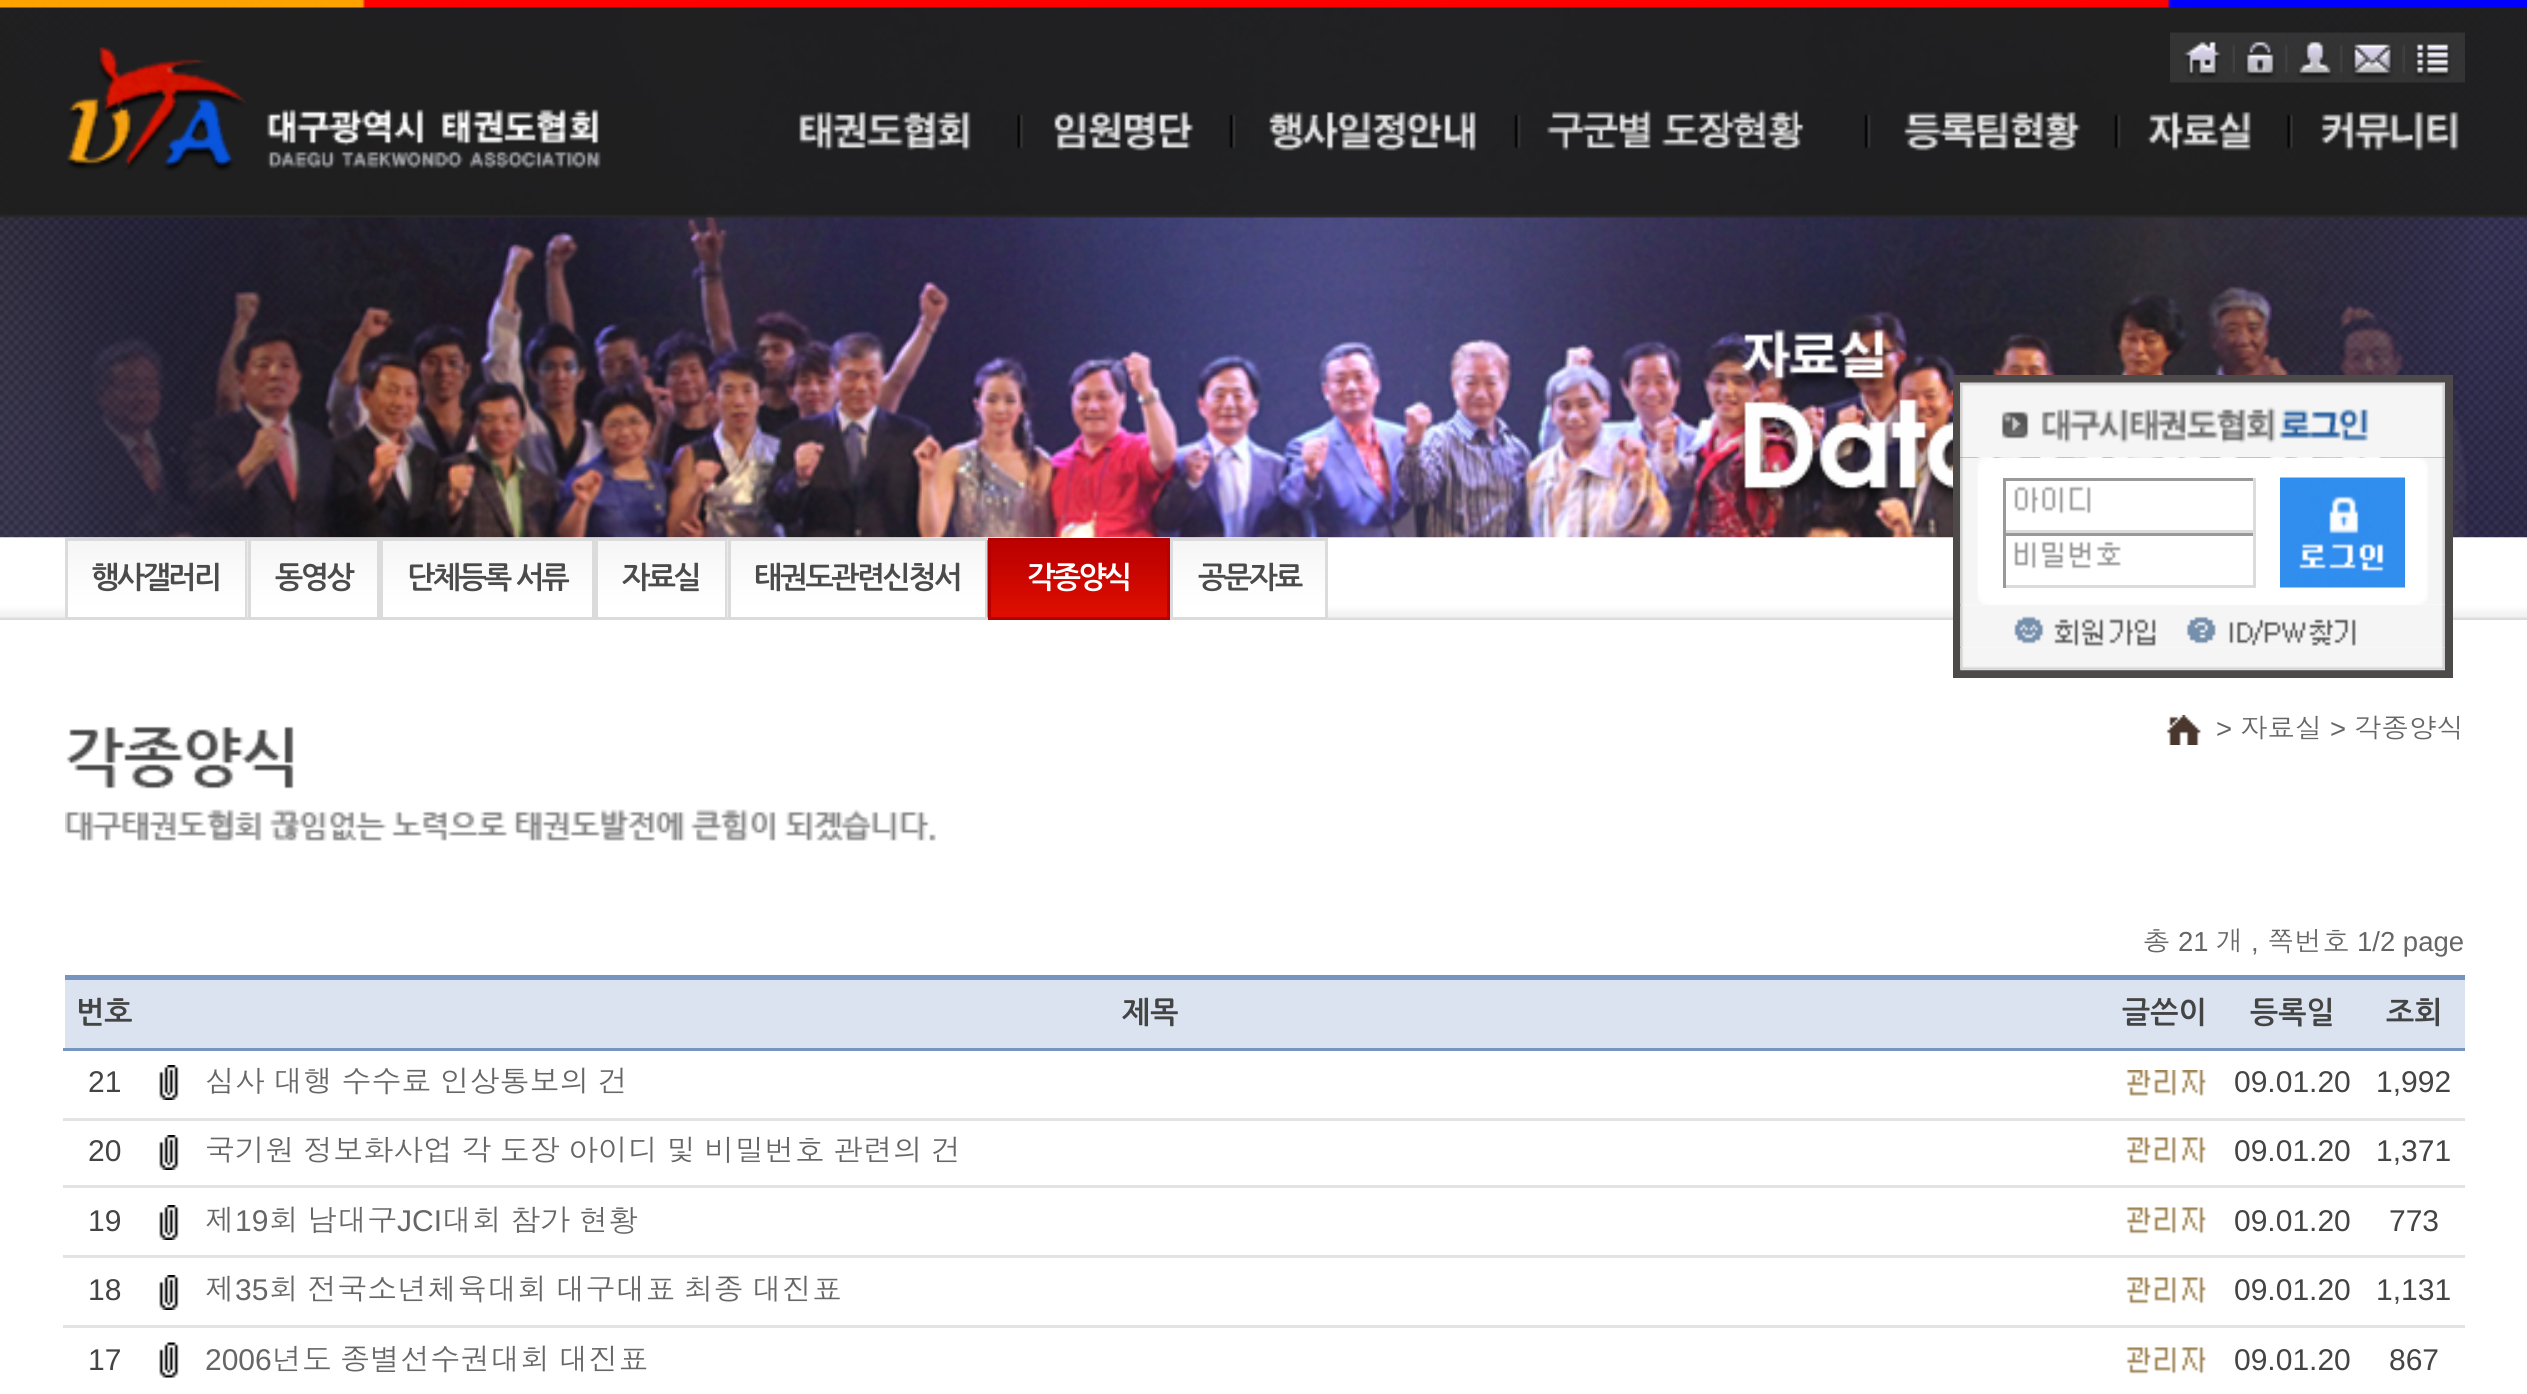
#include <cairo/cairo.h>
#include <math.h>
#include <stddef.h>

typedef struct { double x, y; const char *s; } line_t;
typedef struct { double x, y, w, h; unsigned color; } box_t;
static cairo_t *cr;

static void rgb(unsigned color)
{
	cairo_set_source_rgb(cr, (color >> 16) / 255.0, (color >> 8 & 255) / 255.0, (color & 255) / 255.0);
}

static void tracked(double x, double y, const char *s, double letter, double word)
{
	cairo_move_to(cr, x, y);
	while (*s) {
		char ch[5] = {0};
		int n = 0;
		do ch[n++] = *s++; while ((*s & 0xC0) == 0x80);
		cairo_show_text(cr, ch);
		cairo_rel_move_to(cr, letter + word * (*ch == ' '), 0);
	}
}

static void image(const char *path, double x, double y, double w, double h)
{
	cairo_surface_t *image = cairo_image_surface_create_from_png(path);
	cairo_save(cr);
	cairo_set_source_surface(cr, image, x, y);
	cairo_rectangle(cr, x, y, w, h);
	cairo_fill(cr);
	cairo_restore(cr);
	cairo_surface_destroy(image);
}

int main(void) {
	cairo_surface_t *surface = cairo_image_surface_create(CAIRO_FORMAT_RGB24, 2527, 1394);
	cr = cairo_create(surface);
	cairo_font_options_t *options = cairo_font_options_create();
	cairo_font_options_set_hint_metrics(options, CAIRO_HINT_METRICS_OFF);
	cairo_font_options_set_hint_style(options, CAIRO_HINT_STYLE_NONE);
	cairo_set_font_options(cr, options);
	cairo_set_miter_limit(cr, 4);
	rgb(0xffffff);
	cairo_paint(cr);
	image("img/17.png", 0, 7, 2527, 531);
	image("img/1.png", 0, 7, 2527, 211);
	image("img/2.png", 0, 0, 2527, 8);
	image("img/3.png", 67, 46, 534, 125);
	image("img/4.png", 2170, 32, 65, 51);
	image("img/5.png", 2235, 32, 53, 51);
	image("img/6.png", 2287, 32, 56, 51);
	image("img/7.png", 2342, 32, 63, 51);
	image("img/8.png", 2405, 32, 60, 51);
	image("img/9.png", 1017, 114, 1276, 35);
	image("img/10.png", 799, 111, 172, 40);
	image("img/11.png", 1054, 111, 140, 40);
	image("img/12.png", 1269, 111, 207, 40);
	image("img/13.png", 1546, 109, 258, 42);
	image("img/14.png", 1904, 111, 177, 40);
	image("img/15.png", 2147, 111, 104, 40);
	image("img/16.png", 2320, 111, 139, 40);
	image("img/18.png", 0, 537, 2527, 83);
	image("img/19.png", 1735, 329, 659, 176);
	image("img/20.png", 68, 541, 177, 76);
	cairo_rectangle(cr, 66.5, 539.5, 180, 79);
	rgb(0xdbdbdb);
	cairo_set_line_width(cr, 3);
	cairo_stroke(cr);
	image("img/21.png", 247, 540, 130, 78);
	cairo_rectangle(cr, 249.5, 539.5, 129, 79);
	cairo_stroke(cr);
	image("img/22.png", 383, 541, 209, 76);
	cairo_rectangle(cr, 381.5, 539.5, 212, 79);
	cairo_stroke(cr);
	image("img/23.png", 598, 541, 127, 76);
	cairo_rectangle(cr, 596.5, 539.5, 130, 79);
	cairo_stroke(cr);
	image("img/24.png", 727, 540, 258, 78);
	cairo_rectangle(cr, 729.5, 539.5, 257, 79);
	cairo_stroke(cr);
	image("img/25.png", 987, 540, 180, 78);
	cairo_rectangle(cr, 989.5, 539.5, 179, 79);
	rgb(0xb40000);
	cairo_stroke(cr);
	image("img/26.png", 1173, 541, 152, 76);
	cairo_rectangle(cr, 1171.5, 539.5, 155, 79);
	rgb(0xdbdbdb);
	cairo_stroke(cr);
	cairo_rectangle(cr, 1957, 379, 492, 295);
	rgb(0x4e4a4a);
	cairo_set_line_width(cr, 8);
	cairo_stroke(cr);
	image("img/28.png", 1960, 457, 485, 149);
	image("img/27.png", 1960, 382, 485, 76);
	image("img/29.png", 2014, 486, 77, 28);
	{
		static const box_t items[] = {
			{2003, 478, 252, 3, 0x999999},
			{2253, 478, 3, 55, 0xdbdbdb},
			{2003, 530, 252, 3, 0xdbdbdb},
			{2003, 478, 3, 55, 0x999999},
		};
		for (size_t i = 0; i < sizeof items / sizeof *items; i++) {
			rgb(items[i].color);
			cairo_rectangle(cr, items[i].x, items[i].y, items[i].w, items[i].h);
			cairo_fill(cr);
		}
	}
	image("img/30.png", 2280, 477, 125, 111);
	image("img/31.png", 2014, 541, 107, 28);
	{
		static const box_t items[] = {
			{2003, 533, 252, 3, 0x999999},
			{2253, 533, 3, 55, 0xdbdbdb},
			{2003, 585, 252, 3, 0xdbdbdb},
			{2003, 533, 3, 55, 0x999999},
		};
		for (size_t i = 0; i < sizeof items / sizeof *items; i++) {
			rgb(items[i].color);
			cairo_rectangle(cr, items[i].x, items[i].y, items[i].w, items[i].h);
			cairo_fill(cr);
		}
	}
	image("img/32.png", 1960, 604, 215, 44);
	image("img/33.png", 2175, 605, 270, 43);
	image("img/34.png", 1960, 647, 485, 24);
	image("img/35.png", 65, 809, 871, 32);
	image("img/36.png", 66, 726, 228, 63);
	image("img/37.png", 2166, 715, 35, 30);
	{
		static const box_t items[] = {
			{65, 975, 2400, 5, 0x7694c0},
			{65, 980, 2400, 68, 0xdae3ef},
			{63, 1048, 2402, 3, 0x7694c0},
		};
		for (size_t i = 0; i < sizeof items / sizeof *items; i++) {
			rgb(items[i].color);
			cairo_rectangle(cr, items[i].x, items[i].y, items[i].w, items[i].h);
			cairo_fill(cr);
		}
	}
	image("img/38.png", 159, 1065, 20, 35);
	image("img/39.png", 2126, 1070, 80, 26);
	rgb(0xe3e3e3);
	cairo_rectangle(cr, 63, 1118, 2402, 3);
	cairo_fill(cr);
	image("img/38.png", 159, 1135, 20, 35);
	image("img/40.png", 2126, 1137, 80, 27);
	cairo_rectangle(cr, 63, 1185, 2402, 3);
	cairo_fill(cr);
	image("img/38.png", 159, 1205, 20, 35);
	image("img/40.png", 2126, 1207, 80, 27);
	cairo_rectangle(cr, 63, 1255, 2402, 3);
	cairo_fill(cr);
	image("img/38.png", 159, 1275, 20, 35);
	image("img/40.png", 2126, 1277, 80, 27);
	cairo_rectangle(cr, 63, 1325, 2402, 3);
	cairo_fill(cr);
	image("img/41.png", 159, 1342, 20, 36);
	image("img/40.png", 2126, 1347, 80, 27);
	cairo_select_font_face(cr, "NanumGothic", CAIRO_FONT_SLANT_NORMAL, CAIRO_FONT_WEIGHT_BOLD);
	cairo_set_font_size(cr, 30);
	rgb(0x4b4b4b);
	{
		static const line_t items[] = {
			{91, 588, "행사갤러리"},
			{275, 588, "동영상"},
			{407, 588, "단체등록 서류"},
			{622, 588, "자료실"},
			{754, 588, "태권도관련신청서"},
		};
		for (size_t i = 0; i < sizeof items / sizeof *items; i++) {
			tracked(items[i].x, items[i].y, items[i].s, -2.5, 0);
		}
	}
	rgb(0xffffff);
	tracked(1027, 588, "각종양식", -2.5, 0);
	rgb(0x4b4b4b);
	tracked(1198, 588, "공문자료", -2.5, 0);
	cairo_select_font_face(cr, "Liberation Sans", CAIRO_FONT_SLANT_NORMAL, CAIRO_FONT_WEIGHT_NORMAL);
	cairo_set_font_size(cr, 27.5);
	rgb(0x666666);
	cairo_move_to(cr, 2216, 738);
	cairo_show_text(cr, ">");
	cairo_select_font_face(cr, "Dotum", CAIRO_FONT_SLANT_NORMAL, CAIRO_FONT_WEIGHT_NORMAL);
	cairo_move_to(cr, 2240, 738);
	cairo_show_text(cr, "자료실");
	cairo_select_font_face(cr, "Liberation Sans", CAIRO_FONT_SLANT_NORMAL, CAIRO_FONT_WEIGHT_NORMAL);
	cairo_move_to(cr, 2330, 738);
	cairo_show_text(cr, ">");
	cairo_select_font_face(cr, "Dotum", CAIRO_FONT_SLANT_NORMAL, CAIRO_FONT_WEIGHT_NORMAL);
	cairo_move_to(cr, 2354, 738);
	cairo_show_text(cr, "각종양식");
	cairo_move_to(cr, 2143, 951);
	cairo_show_text(cr, "총");
	cairo_select_font_face(cr, "Liberation Sans", CAIRO_FONT_SLANT_NORMAL, CAIRO_FONT_WEIGHT_NORMAL);
	cairo_move_to(cr, 2178, 951);
	cairo_show_text(cr, "21");
	cairo_select_font_face(cr, "Dotum", CAIRO_FONT_SLANT_NORMAL, CAIRO_FONT_WEIGHT_NORMAL);
	cairo_move_to(cr, 2216, 951);
	cairo_show_text(cr, "개");
	cairo_select_font_face(cr, "Liberation Sans", CAIRO_FONT_SLANT_NORMAL, CAIRO_FONT_WEIGHT_NORMAL);
	cairo_move_to(cr, 2251, 951);
	cairo_show_text(cr, ",");
	cairo_select_font_face(cr, "Dotum", CAIRO_FONT_SLANT_NORMAL, CAIRO_FONT_WEIGHT_NORMAL);
	cairo_move_to(cr, 2267, 951);
	cairo_show_text(cr, "쪽번호");
	cairo_select_font_face(cr, "Liberation Sans", CAIRO_FONT_SLANT_NORMAL, CAIRO_FONT_WEIGHT_NORMAL);
	cairo_move_to(cr, 2357, 951);
	cairo_show_text(cr, "1/2 page");
	cairo_select_font_face(cr, "NanumGothic", CAIRO_FONT_SLANT_NORMAL, CAIRO_FONT_WEIGHT_BOLD);
	cairo_set_font_size(cr, 30);
	rgb(0x444444);
	{
		static const line_t items[] = {
			{76, 1023, "번호"},
			{1122, 1023, "제목"},
			{2122, 1023, "글쓴이"},
			{2250, 1023, "등록일"},
			{2386, 1023, "조회"},
		};
		for (size_t i = 0; i < sizeof items / sizeof *items; i++) {
			cairo_move_to(cr, items[i].x, items[i].y);
			cairo_show_text(cr, items[i].s);
		}
	}
	cairo_select_font_face(cr, "Liberation Sans", CAIRO_FONT_SLANT_NORMAL, CAIRO_FONT_WEIGHT_NORMAL);
	cairo_move_to(cr, 88, 1092);
	cairo_show_text(cr, "21");
	cairo_select_font_face(cr, "Dotum", CAIRO_FONT_SLANT_NORMAL, CAIRO_FONT_WEIGHT_NORMAL);
	rgb(0x666666);
	tracked(205, 1092, "심사 대행 수수료 인상통보의 건", 0, -1.75);
	cairo_select_font_face(cr, "Liberation Sans", CAIRO_FONT_SLANT_NORMAL, CAIRO_FONT_WEIGHT_NORMAL);
	rgb(0x444444);
	{
		static const line_t items[] = {
			{2234, 1092, "09.01.20"},
			{2376, 1092, "1,992"},
			{88, 1161, "20"},
		};
		for (size_t i = 0; i < sizeof items / sizeof *items; i++) {
			cairo_move_to(cr, items[i].x, items[i].y);
			cairo_show_text(cr, items[i].s);
		}
	}
	cairo_select_font_face(cr, "Dotum", CAIRO_FONT_SLANT_NORMAL, CAIRO_FONT_WEIGHT_NORMAL);
	rgb(0x666666);
	tracked(205, 1161, "국기원 정보화사업 각 도장 아이디 및 비밀번호 관련의 건", 0, -1.75);
	cairo_select_font_face(cr, "Liberation Sans", CAIRO_FONT_SLANT_NORMAL, CAIRO_FONT_WEIGHT_NORMAL);
	rgb(0x444444);
	{
		static const line_t items[] = {
			{2234, 1161, "09.01.20"},
			{2376, 1161, "1,371"},
			{88, 1231, "19"},
		};
		for (size_t i = 0; i < sizeof items / sizeof *items; i++) {
			cairo_move_to(cr, items[i].x, items[i].y);
			cairo_show_text(cr, items[i].s);
		}
	}
	cairo_select_font_face(cr, "Dotum", CAIRO_FONT_SLANT_NORMAL, CAIRO_FONT_WEIGHT_NORMAL);
	rgb(0x666666);
	cairo_move_to(cr, 205, 1231);
	cairo_show_text(cr, "제");
	cairo_select_font_face(cr, "Liberation Sans", CAIRO_FONT_SLANT_NORMAL, CAIRO_FONT_WEIGHT_NORMAL);
	cairo_move_to(cr, 235, 1231);
	cairo_show_text(cr, "19");
	cairo_select_font_face(cr, "Dotum", CAIRO_FONT_SLANT_NORMAL, CAIRO_FONT_WEIGHT_NORMAL);
	tracked(269, 1231, "회 남대구", 0, -1.75);
	cairo_select_font_face(cr, "Liberation Sans", CAIRO_FONT_SLANT_NORMAL, CAIRO_FONT_WEIGHT_NORMAL);
	cairo_move_to(cr, 397, 1231);
	cairo_show_text(cr, "JCI");
	cairo_select_font_face(cr, "Dotum", CAIRO_FONT_SLANT_NORMAL, CAIRO_FONT_WEIGHT_NORMAL);
	tracked(442, 1231, "대회 참가 현황", 0, -1.75);
	cairo_select_font_face(cr, "Liberation Sans", CAIRO_FONT_SLANT_NORMAL, CAIRO_FONT_WEIGHT_NORMAL);
	rgb(0x444444);
	{
		static const line_t items[] = {
			{2234, 1231, "09.01.20"},
			{2389, 1231, "773"},
			{88, 1300, "18"},
		};
		for (size_t i = 0; i < sizeof items / sizeof *items; i++) {
			cairo_move_to(cr, items[i].x, items[i].y);
			cairo_show_text(cr, items[i].s);
		}
	}
	cairo_select_font_face(cr, "Dotum", CAIRO_FONT_SLANT_NORMAL, CAIRO_FONT_WEIGHT_NORMAL);
	rgb(0x666666);
	cairo_move_to(cr, 205, 1300);
	cairo_show_text(cr, "제");
	cairo_select_font_face(cr, "Liberation Sans", CAIRO_FONT_SLANT_NORMAL, CAIRO_FONT_WEIGHT_NORMAL);
	cairo_move_to(cr, 235, 1300);
	cairo_show_text(cr, "35");
	cairo_select_font_face(cr, "Dotum", CAIRO_FONT_SLANT_NORMAL, CAIRO_FONT_WEIGHT_NORMAL);
	tracked(269, 1300, "회 전국소년체육대회 대구대표 최종 대진표", 0, -1.75);
	cairo_select_font_face(cr, "Liberation Sans", CAIRO_FONT_SLANT_NORMAL, CAIRO_FONT_WEIGHT_NORMAL);
	rgb(0x444444);
	{
		static const line_t items[] = {
			{2234, 1300, "09.01.20"},
			{2376, 1300, "1,131"},
			{88, 1370, "17"},
		};
		for (size_t i = 0; i < sizeof items / sizeof *items; i++) {
			cairo_move_to(cr, items[i].x, items[i].y);
			cairo_show_text(cr, items[i].s);
		}
	}
	rgb(0x666666);
	cairo_move_to(cr, 205, 1370);
	cairo_show_text(cr, "2006");
	cairo_select_font_face(cr, "Dotum", CAIRO_FONT_SLANT_NORMAL, CAIRO_FONT_WEIGHT_NORMAL);
	tracked(272, 1370, "년도 종별선수권대회 대진표", 0, -1.75);
	cairo_select_font_face(cr, "Liberation Sans", CAIRO_FONT_SLANT_NORMAL, CAIRO_FONT_WEIGHT_NORMAL);
	rgb(0x444444);
	cairo_move_to(cr, 2234, 1370);
	cairo_show_text(cr, "09.01.20");
	cairo_move_to(cr, 2389, 1370);
	cairo_show_text(cr, "867");
	cairo_surface_write_to_png(surface, "page.png");
	cairo_font_options_destroy(options);
	cairo_destroy(cr);
	cairo_surface_destroy(surface);
	return 0;
}
